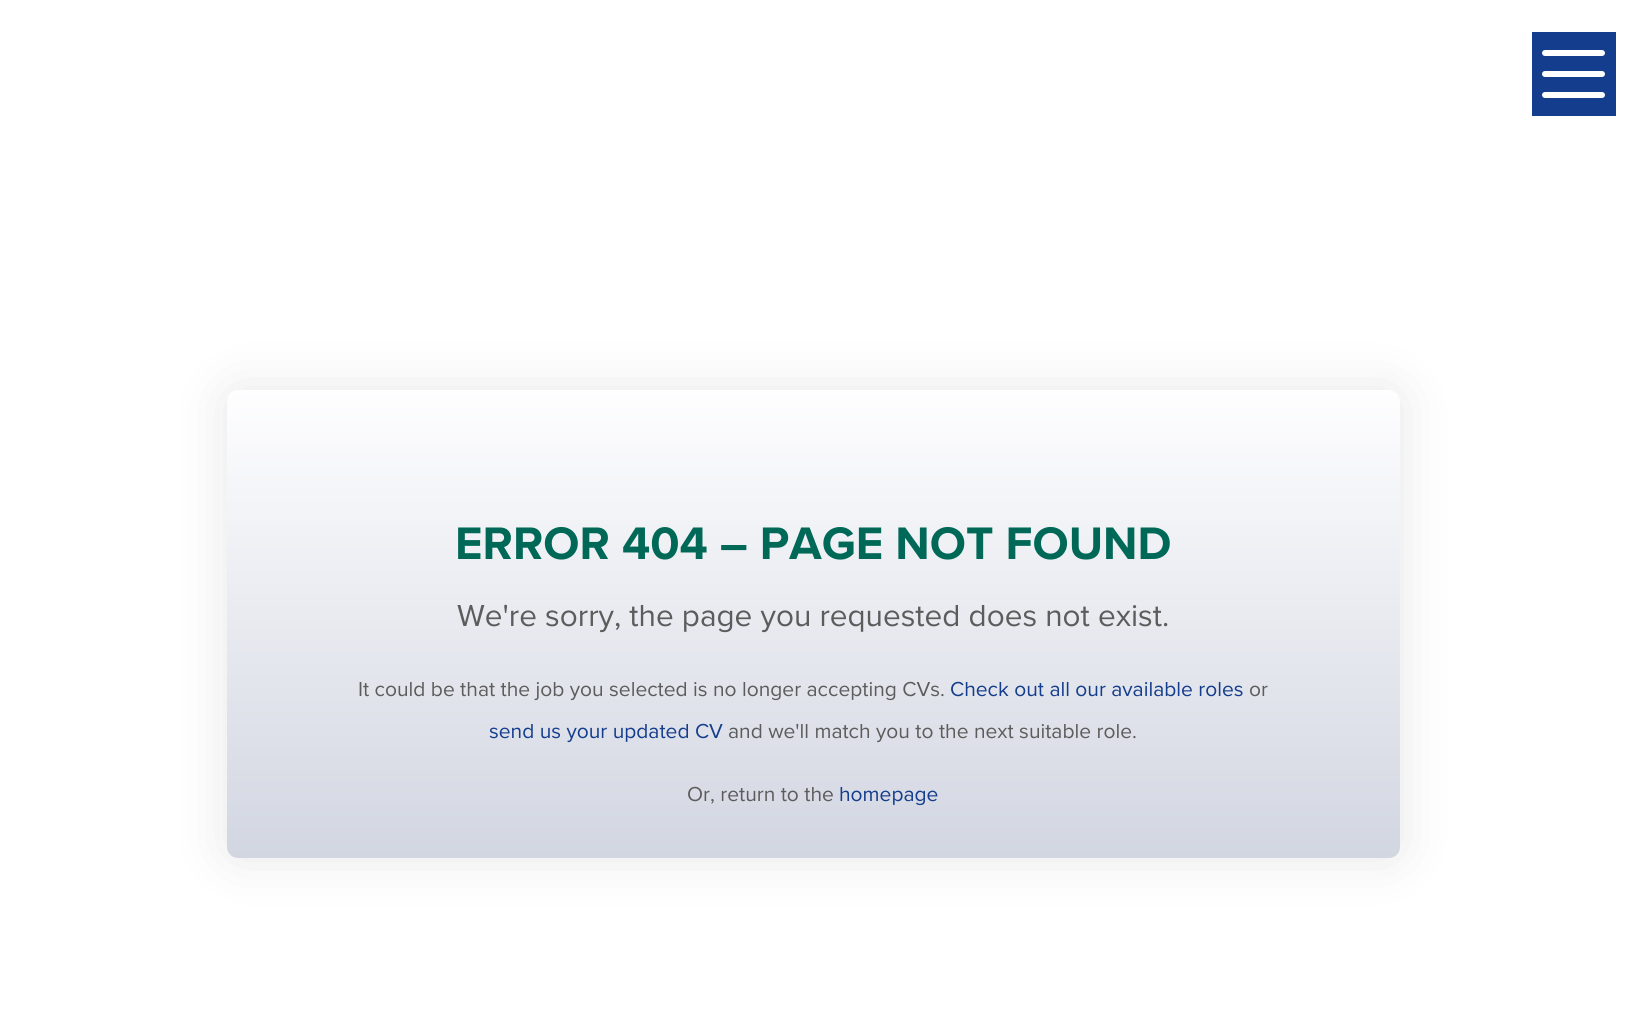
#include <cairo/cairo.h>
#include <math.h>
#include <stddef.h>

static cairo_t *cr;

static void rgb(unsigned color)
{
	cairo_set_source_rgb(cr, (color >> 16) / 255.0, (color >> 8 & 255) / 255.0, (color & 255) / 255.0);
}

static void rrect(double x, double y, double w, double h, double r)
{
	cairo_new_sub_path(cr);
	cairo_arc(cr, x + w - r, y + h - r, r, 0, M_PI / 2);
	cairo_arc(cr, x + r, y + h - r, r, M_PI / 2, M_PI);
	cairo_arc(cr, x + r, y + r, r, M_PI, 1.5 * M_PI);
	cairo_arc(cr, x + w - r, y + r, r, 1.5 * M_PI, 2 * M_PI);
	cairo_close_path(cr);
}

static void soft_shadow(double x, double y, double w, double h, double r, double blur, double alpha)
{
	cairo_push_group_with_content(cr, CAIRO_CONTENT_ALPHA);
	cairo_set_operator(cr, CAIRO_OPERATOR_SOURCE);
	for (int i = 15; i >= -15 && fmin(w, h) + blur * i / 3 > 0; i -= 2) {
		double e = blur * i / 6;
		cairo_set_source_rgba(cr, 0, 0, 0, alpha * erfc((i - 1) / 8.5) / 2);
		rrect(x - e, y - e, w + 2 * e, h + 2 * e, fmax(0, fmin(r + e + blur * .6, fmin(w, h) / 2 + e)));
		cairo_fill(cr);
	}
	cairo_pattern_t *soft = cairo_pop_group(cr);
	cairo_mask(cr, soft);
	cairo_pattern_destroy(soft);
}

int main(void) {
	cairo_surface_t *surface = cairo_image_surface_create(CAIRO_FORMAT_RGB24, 1625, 1028);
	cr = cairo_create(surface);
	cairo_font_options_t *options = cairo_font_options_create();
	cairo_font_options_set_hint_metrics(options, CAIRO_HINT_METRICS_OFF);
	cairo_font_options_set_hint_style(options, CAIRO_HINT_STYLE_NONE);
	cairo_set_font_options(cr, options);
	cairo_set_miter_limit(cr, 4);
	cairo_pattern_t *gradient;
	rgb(0xffffff);
	cairo_paint(cr);
	rgb(0x143d8d);
	cairo_rectangle(cr, 1532, 32, 84, 84);
	cairo_fill(cr);
	rgb(0xffffff);
	rrect(1542, 50, 63, 6, 3);
	cairo_fill(cr);
	rrect(1542, 71, 63, 6, 3);
	cairo_fill(cr);
	rrect(1542, 92, 63, 6, 3);
	cairo_fill(cr);
	rgb(0x000000);
	soft_shadow(227, 390, 1173, 468, 11, 26, 0.1);
	gradient = cairo_pattern_create_linear(813, 390, 813, 858);
	cairo_pattern_add_color_stop_rgba(gradient, 0, 0.996, 0.996, 1, 1);
	cairo_pattern_add_color_stop_rgba(gradient, 1, 0.824, 0.839, 0.882, 1);
	cairo_set_source(cr, gradient);
	cairo_pattern_destroy(gradient);
	rrect(227, 390, 1173, 468, 11);
	cairo_fill(cr);
	cairo_select_font_face(cr, "Proxima Nova", CAIRO_FONT_SLANT_NORMAL, CAIRO_FONT_WEIGHT_BOLD);
	cairo_set_font_size(cr, 47.25);
	rgb(0x006857);
	cairo_move_to(cr, 455, 559);
	cairo_show_text(cr, "ERROR 404 – PAGE NOT FOUND");
	cairo_select_font_face(cr, "Proxima Nova", CAIRO_FONT_SLANT_NORMAL, CAIRO_FONT_WEIGHT_NORMAL);
	cairo_set_font_size(cr, 31.5);
	rgb(0x5c5c5c);
	cairo_move_to(cr, 457, 626);
	cairo_show_text(cr, "We're sorry, the page you requested does not exist.");
	cairo_set_font_size(cr, 21);
	cairo_move_to(cr, 358, 696);
	cairo_show_text(cr, "It could be that the job you selected is no longer accepting CVs.");
	rgb(0x143d8d);
	cairo_move_to(cr, 950, 696);
	cairo_show_text(cr, "Check out all our available roles");
	rgb(0x5c5c5c);
	cairo_move_to(cr, 1249, 696);
	cairo_show_text(cr, "or");
	rgb(0x143d8d);
	cairo_move_to(cr, 489, 738);
	cairo_show_text(cr, "send us your updated CV");
	rgb(0x5c5c5c);
	cairo_move_to(cr, 728, 738);
	cairo_show_text(cr, "and we'll match you to the next suitable role.");
	cairo_move_to(cr, 687, 801);
	cairo_show_text(cr, "Or, return to the");
	rgb(0x143d8d);
	cairo_move_to(cr, 839, 801);
	cairo_show_text(cr, "homepage");
	cairo_surface_write_to_png(surface, "page.png");
	cairo_font_options_destroy(options);
	cairo_destroy(cr);
	cairo_surface_destroy(surface);
	return 0;
}
